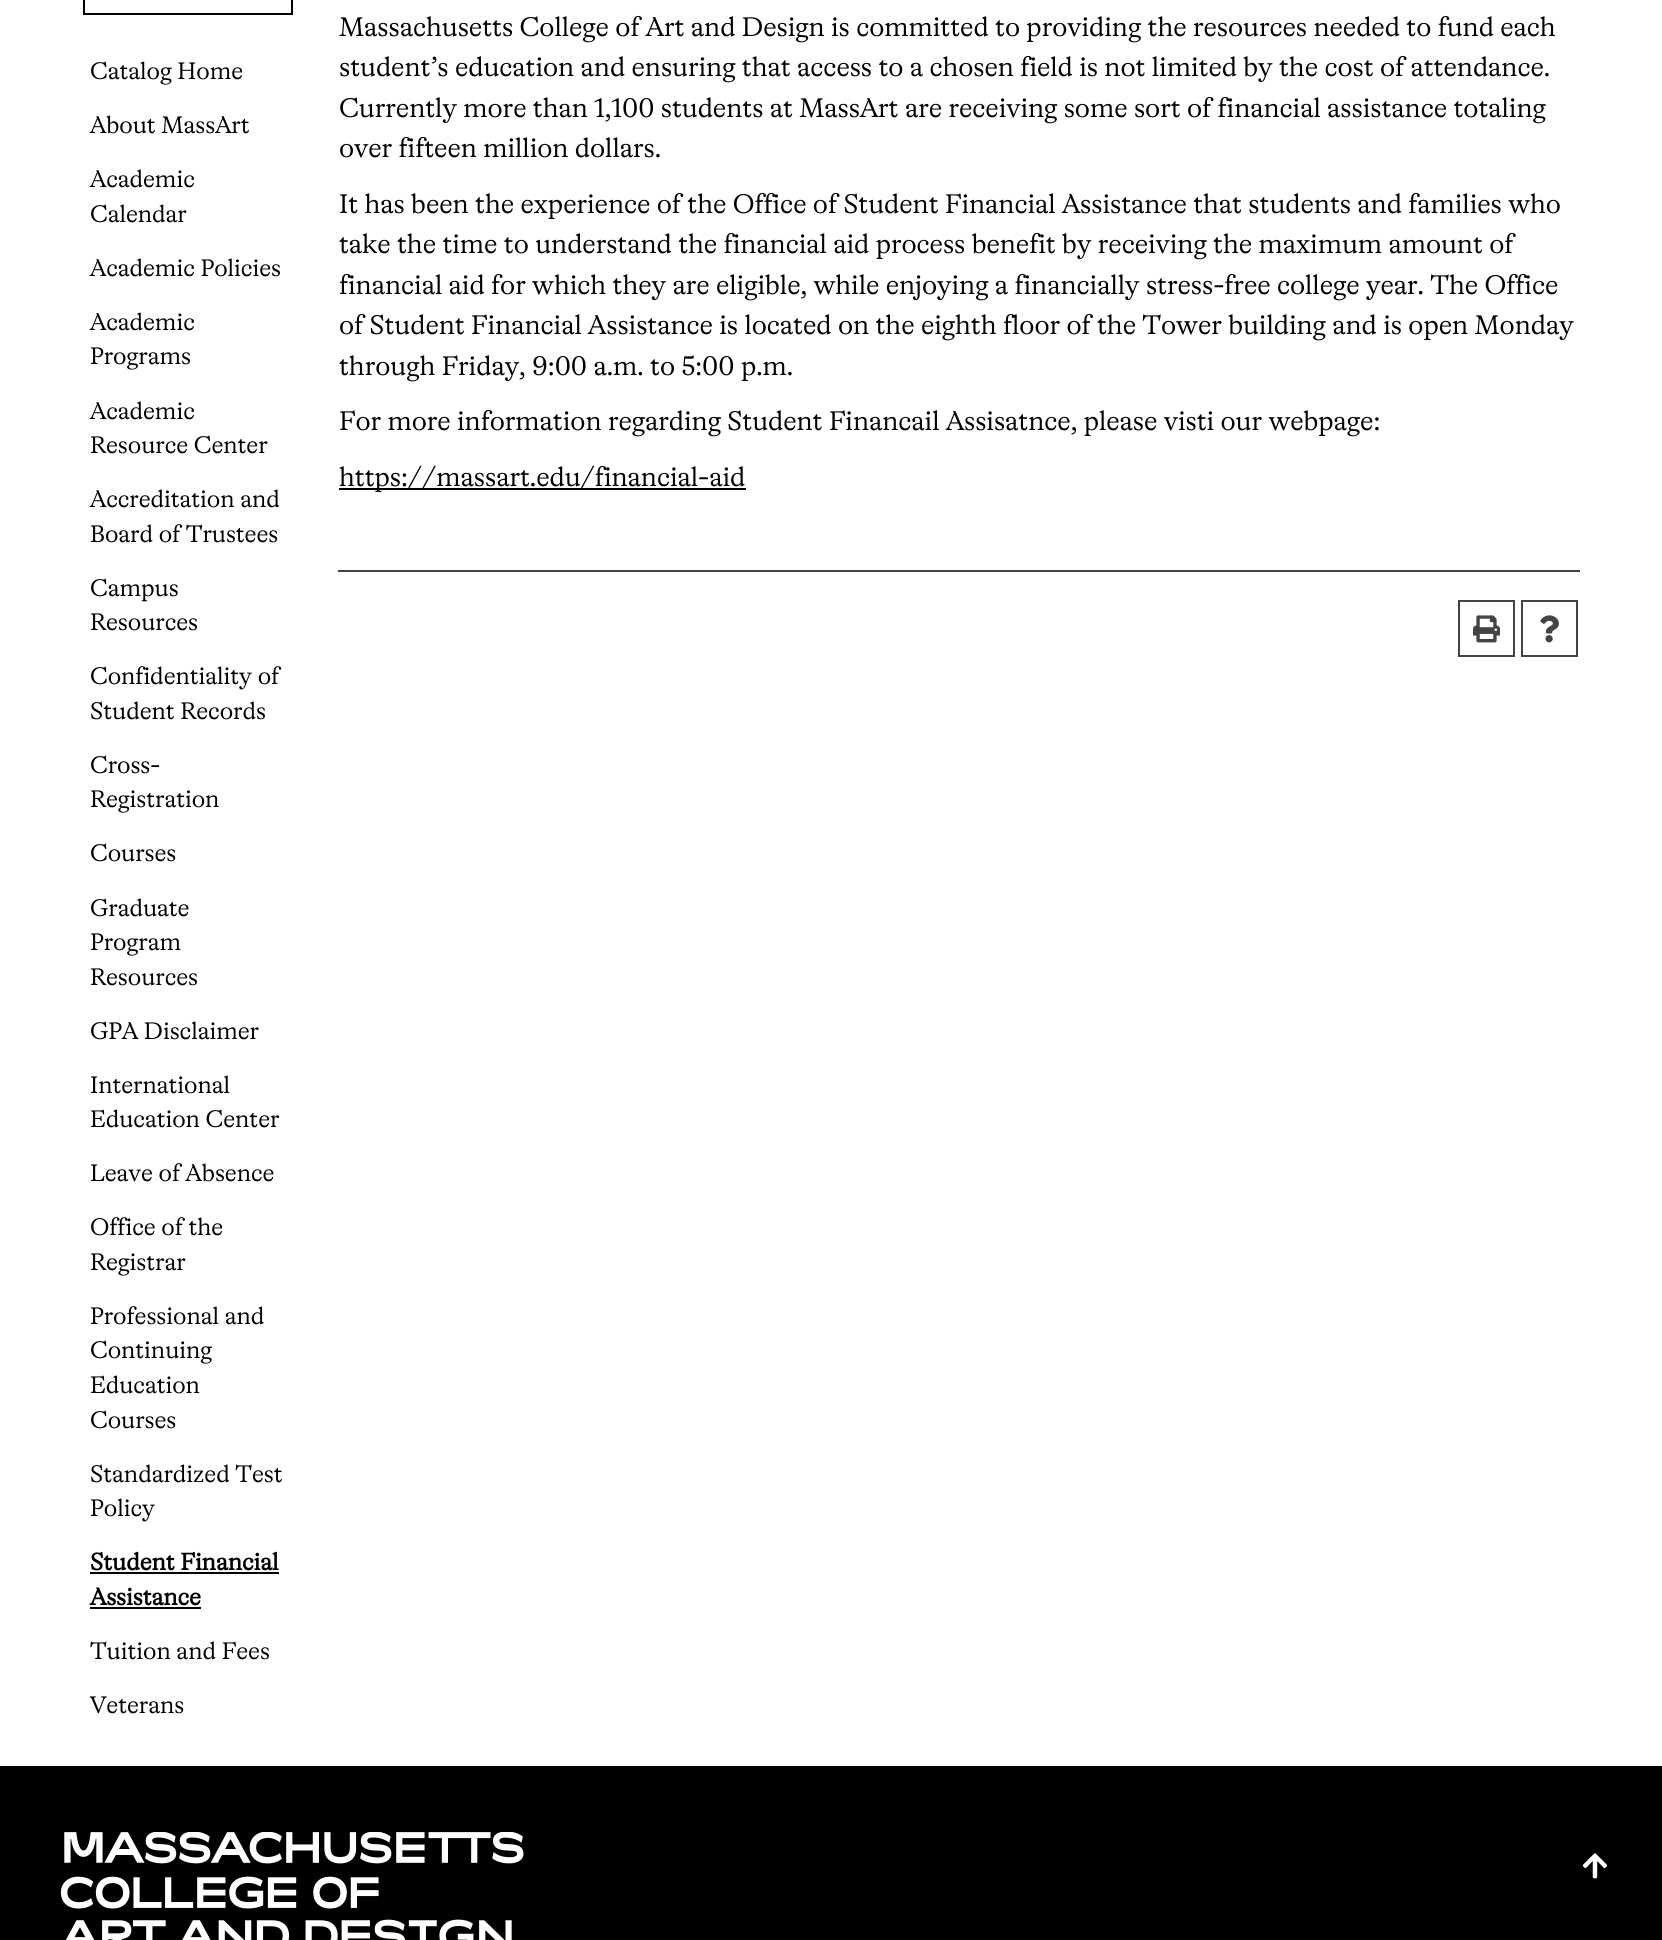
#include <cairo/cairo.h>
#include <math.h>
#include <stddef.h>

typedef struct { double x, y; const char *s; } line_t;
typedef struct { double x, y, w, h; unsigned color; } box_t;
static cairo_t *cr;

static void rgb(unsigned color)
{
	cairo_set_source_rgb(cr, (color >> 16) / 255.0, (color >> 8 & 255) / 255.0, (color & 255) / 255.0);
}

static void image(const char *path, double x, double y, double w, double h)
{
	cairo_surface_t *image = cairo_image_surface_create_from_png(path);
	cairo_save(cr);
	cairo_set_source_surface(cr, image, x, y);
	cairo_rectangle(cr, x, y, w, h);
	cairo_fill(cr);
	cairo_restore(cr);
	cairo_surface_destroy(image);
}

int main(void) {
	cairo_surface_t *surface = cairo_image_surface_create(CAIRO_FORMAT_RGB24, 1662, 1940);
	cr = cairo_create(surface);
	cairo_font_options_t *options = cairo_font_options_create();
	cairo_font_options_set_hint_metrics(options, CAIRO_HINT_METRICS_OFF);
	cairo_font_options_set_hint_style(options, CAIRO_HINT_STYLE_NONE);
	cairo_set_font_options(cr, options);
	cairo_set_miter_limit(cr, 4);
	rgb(0xffffff);
	cairo_paint(cr);
	cairo_rectangle(cr, 84, -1, 208, 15);
	rgb(0x000000);
	cairo_stroke(cr);
	{
		static const box_t items[] = {
			{90, 1572, 189, 2, 0x000000},
			{90, 1607, 111, 2, 0x000000},
			{339, 488, 407, 2, 0x000000},
			{338, 570, 1242, 2, 0x444444},
		};
		for (size_t i = 0; i < sizeof items / sizeof *items; i++) {
			rgb(items[i].color);
			cairo_rectangle(cr, items[i].x, items[i].y, items[i].w, items[i].h);
			cairo_fill(cr);
		}
	}
	cairo_rectangle(cr, 1459, 601, 55, 55);
	cairo_stroke(cr);
	image("img/1.png", 1473, 615, 27, 28);
	cairo_rectangle(cr, 1522, 601, 55, 55);
	cairo_stroke(cr);
	image("img/2.png", 1540, 615, 19, 28);
	rgb(0x000000);
	cairo_rectangle(cr, 0, 1766, 1662, 174);
	cairo_fill(cr);
	image("img/3.png", 60, 1832, 464, 108);
	image("img/4.png", 1582, 1853, 26, 26);
	cairo_select_font_face(cr, "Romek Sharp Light", CAIRO_FONT_SLANT_NORMAL, CAIRO_FONT_WEIGHT_NORMAL);
	cairo_set_font_size(cr, 24);
	{
		static const line_t items[] = {
			{90, 79, "Catalog Home"},
			{90, 133, "About MassArt"},
			{90, 187, "Academic"},
			{90, 222, "Calendar"},
			{90, 276, "Academic Policies"},
			{90, 330, "Academic"},
			{90, 364, "Programs"},
			{90, 419, "Academic"},
			{90, 453, "Resource Center"},
			{90, 507, "Accreditation and"},
			{90, 542, "Board of Trustees"},
			{90, 596, "Campus"},
			{90, 630, "Resources"},
			{90, 684, "Confidentiality of"},
			{90, 719, "Student Records"},
			{90, 773, "Cross-"},
			{90, 807, "Registration"},
			{90, 861, "Courses"},
			{90, 916, "Graduate"},
			{90, 950, "Program"},
			{90, 985, "Resources"},
			{90, 1039, "GPA Disclaimer"},
			{90, 1093, "International"},
			{90, 1127, "Education Center"},
			{90, 1181, "Leave of Absence"},
			{90, 1235, "Office of the"},
			{90, 1270, "Registrar"},
			{90, 1324, "Professional and"},
			{90, 1358, "Continuing"},
			{90, 1393, "Education"},
			{90, 1428, "Courses"},
			{90, 1482, "Standardized Test"},
			{90, 1516, "Policy"},
		};
		for (size_t i = 0; i < sizeof items / sizeof *items; i++) {
			cairo_move_to(cr, items[i].x, items[i].y);
			cairo_show_text(cr, items[i].s);
		}
	}
	cairo_select_font_face(cr, "Romek Sharp", CAIRO_FONT_SLANT_NORMAL, CAIRO_FONT_WEIGHT_BOLD);
	cairo_move_to(cr, 90, 1570);
	cairo_show_text(cr, "Student Financial");
	cairo_move_to(cr, 90, 1605);
	cairo_show_text(cr, "Assistance");
	cairo_select_font_face(cr, "Romek Sharp Light", CAIRO_FONT_SLANT_NORMAL, CAIRO_FONT_WEIGHT_NORMAL);
	cairo_move_to(cr, 90, 1659);
	cairo_show_text(cr, "Tuition and Fees");
	cairo_move_to(cr, 90, 1713);
	cairo_show_text(cr, "Veterans");
	cairo_set_font_size(cr, 27);
	{
		static const line_t items[] = {
			{339, 36, "Massachusetts College of Art and Design is committed to providing the resources needed to fund each"},
			{339, 76, "student’s education and ensuring that access to a chosen field is not limited by the cost of attendance."},
			{339, 117, "Currently more than 1,100 students at MassArt are receiving some sort of financial assistance totaling"},
			{339, 157, "over fifteen million dollars."},
			{339, 213, "It has been the experience of the Office of Student Financial Assistance that students and families who"},
			{339, 253, "take the time to understand the financial aid process benefit by receiving the maximum amount of"},
			{339, 294, "financial aid for which they are eligible, while enjoying a financially stress-free college year. The Office"},
			{339, 334, "of Student Financial Assistance is located on the eighth floor of the Tower building and is open Monday"},
			{339, 375, "through Friday, 9:00 a.m. to 5:00 p.m."},
			{339, 430, "For more information regarding Student Financail Assisatnce, please visti our webpage:"},
			{339, 486, "https://massart.edu/financial-aid"},
		};
		for (size_t i = 0; i < sizeof items / sizeof *items; i++) {
			cairo_move_to(cr, items[i].x, items[i].y);
			cairo_show_text(cr, items[i].s);
		}
	}
	cairo_surface_write_to_png(surface, "page.png");
	cairo_font_options_destroy(options);
	cairo_destroy(cr);
	cairo_surface_destroy(surface);
	return 0;
}
